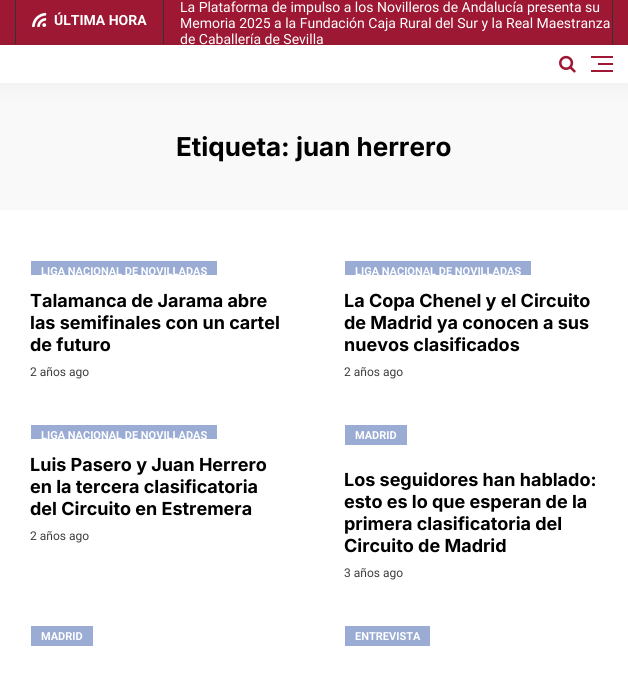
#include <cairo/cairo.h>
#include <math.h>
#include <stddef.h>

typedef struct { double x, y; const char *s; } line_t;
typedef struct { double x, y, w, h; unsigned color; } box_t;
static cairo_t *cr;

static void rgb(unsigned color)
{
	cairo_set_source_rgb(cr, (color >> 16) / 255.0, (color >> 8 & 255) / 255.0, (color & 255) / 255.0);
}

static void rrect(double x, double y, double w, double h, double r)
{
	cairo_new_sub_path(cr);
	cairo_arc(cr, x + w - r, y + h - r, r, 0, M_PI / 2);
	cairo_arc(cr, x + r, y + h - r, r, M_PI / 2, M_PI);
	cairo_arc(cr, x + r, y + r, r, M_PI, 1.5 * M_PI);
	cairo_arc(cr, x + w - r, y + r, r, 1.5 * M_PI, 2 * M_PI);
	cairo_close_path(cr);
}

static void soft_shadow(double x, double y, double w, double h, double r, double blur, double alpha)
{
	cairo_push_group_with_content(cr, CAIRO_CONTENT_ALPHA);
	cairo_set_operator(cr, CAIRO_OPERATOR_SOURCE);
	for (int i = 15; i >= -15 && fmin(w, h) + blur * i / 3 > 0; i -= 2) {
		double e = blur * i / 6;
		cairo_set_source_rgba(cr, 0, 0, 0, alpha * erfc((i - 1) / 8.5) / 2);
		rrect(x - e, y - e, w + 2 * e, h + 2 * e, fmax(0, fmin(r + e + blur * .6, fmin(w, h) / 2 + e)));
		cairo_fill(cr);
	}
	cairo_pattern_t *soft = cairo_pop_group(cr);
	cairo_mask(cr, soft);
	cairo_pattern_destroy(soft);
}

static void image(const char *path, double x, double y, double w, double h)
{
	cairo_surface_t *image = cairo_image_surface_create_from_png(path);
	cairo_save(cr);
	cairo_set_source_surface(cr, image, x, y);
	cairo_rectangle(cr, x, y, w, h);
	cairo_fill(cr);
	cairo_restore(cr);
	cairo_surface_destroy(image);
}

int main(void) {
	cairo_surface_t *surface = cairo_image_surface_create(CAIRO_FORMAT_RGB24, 628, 680);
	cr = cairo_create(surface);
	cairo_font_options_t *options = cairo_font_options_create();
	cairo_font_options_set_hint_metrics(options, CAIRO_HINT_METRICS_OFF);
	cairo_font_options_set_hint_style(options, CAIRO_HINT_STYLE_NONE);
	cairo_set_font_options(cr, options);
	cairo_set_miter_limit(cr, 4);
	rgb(0xffffff);
	cairo_paint(cr);
	{
		static const box_t items[] = {
			{0, 0, 628, 45, 0x9e1834},
			{163, 0, 1, 44, 0x333333},
			{15, 0, 1, 44, 0x333333},
		};
		for (size_t i = 0; i < sizeof items / sizeof *items; i++) {
			rgb(items[i].color);
			cairo_rectangle(cr, items[i].x, items[i].y, items[i].w, items[i].h);
			cairo_fill(cr);
		}
	}
	image("img/1.png", 32, 12, 15, 15);
	cairo_rectangle(cr, 612, 0, 1, 47);
	cairo_fill(cr);
	rgb(0xf9f9f9);
	cairo_rectangle(cr, 0, 83, 628, 127);
	cairo_fill(cr);
	rgb(0x000000);
	soft_shadow(0, 45, 628, 38, 0, 12.5, 0.06);
	rgb(0xffffff);
	cairo_rectangle(cr, 0, 45, 628, 38);
	cairo_fill(cr);
	image("img/2.png", 559, 55, 17, 18);
	{
		static const box_t items[] = {
			{598, 63, 15, 2, 0x9e1834},
			{591, 56, 22, 2, 0x9e1834},
			{591, 70, 22, 2, 0x9e1834},
			{31, 261, 186, 14, 0x9aacd4},
			{345, 261, 186, 14, 0x9aacd4},
			{31, 425, 186, 14, 0x9aacd4},
			{345, 425, 62, 20, 0x9aacd4},
			{31, 626, 62, 20, 0x9aacd4},
			{345, 626, 85, 20, 0x9aacd4},
		};
		for (size_t i = 0; i < sizeof items / sizeof *items; i++) {
			rgb(items[i].color);
			cairo_rectangle(cr, items[i].x, items[i].y, items[i].w, items[i].h);
			cairo_fill(cr);
		}
	}
	cairo_select_font_face(cr, "Roboto", CAIRO_FONT_SLANT_NORMAL, CAIRO_FONT_WEIGHT_BOLD);
	cairo_set_font_size(cr, 14);
	rgb(0xffffff);
	cairo_move_to(cr, 54, 25);
	cairo_show_text(cr, "ÚLTIMA HORA");
	cairo_select_font_face(cr, "Roboto", CAIRO_FONT_SLANT_NORMAL, CAIRO_FONT_WEIGHT_NORMAL);
	{
		static const line_t items[] = {
			{180, 12, "La Plataforma de impulso a los Novilleros de Andalucía presenta su"},
			{180, 28, "Memoria 2025 a la Fundación Caja Rural del Sur y la Real Maestranza"},
			{180, 44, "de Caballería de Sevilla"},
		};
		for (size_t i = 0; i < sizeof items / sizeof *items; i++) {
			cairo_move_to(cr, items[i].x, items[i].y);
			cairo_show_text(cr, items[i].s);
		}
	}
	cairo_select_font_face(cr, "Inter", CAIRO_FONT_SLANT_NORMAL, CAIRO_FONT_WEIGHT_BOLD);
	cairo_set_font_size(cr, 26);
	rgb(0x000000);
	cairo_move_to(cr, 176, 156);
	cairo_show_text(cr, "Etiqueta: juan herrero");
	cairo_select_font_face(cr, "Roboto", CAIRO_FONT_SLANT_NORMAL, CAIRO_FONT_WEIGHT_BOLD);
	cairo_set_font_size(cr, 11);
	rgb(0xffffff);
	cairo_move_to(cr, 41, 275);
	cairo_show_text(cr, "LIGA NACIONAL DE NOVILLADAS");
	cairo_select_font_face(cr, "Inter", CAIRO_FONT_SLANT_NORMAL, CAIRO_FONT_WEIGHT_BOLD);
	cairo_set_font_size(cr, 18);
	rgb(0x000000);
	{
		static const line_t items[] = {
			{30, 307, "Talamanca de Jarama abre"},
			{30, 329, "las semifinales con un cartel"},
			{30, 351, "de futuro"},
		};
		for (size_t i = 0; i < sizeof items / sizeof *items; i++) {
			cairo_move_to(cr, items[i].x, items[i].y);
			cairo_show_text(cr, items[i].s);
		}
	}
	cairo_select_font_face(cr, "Roboto", CAIRO_FONT_SLANT_NORMAL, CAIRO_FONT_WEIGHT_NORMAL);
	cairo_set_font_size(cr, 12);
	rgb(0x3d3d3d);
	cairo_move_to(cr, 30, 376);
	cairo_show_text(cr, "2 años ago");
	cairo_select_font_face(cr, "Roboto", CAIRO_FONT_SLANT_NORMAL, CAIRO_FONT_WEIGHT_BOLD);
	cairo_set_font_size(cr, 11);
	rgb(0xffffff);
	cairo_move_to(cr, 355, 275);
	cairo_show_text(cr, "LIGA NACIONAL DE NOVILLADAS");
	cairo_select_font_face(cr, "Inter", CAIRO_FONT_SLANT_NORMAL, CAIRO_FONT_WEIGHT_BOLD);
	cairo_set_font_size(cr, 18);
	rgb(0x000000);
	{
		static const line_t items[] = {
			{344, 307, "La Copa Chenel y el Circuito"},
			{344, 329, "de Madrid ya conocen a sus"},
			{344, 351, "nuevos clasificados"},
		};
		for (size_t i = 0; i < sizeof items / sizeof *items; i++) {
			cairo_move_to(cr, items[i].x, items[i].y);
			cairo_show_text(cr, items[i].s);
		}
	}
	cairo_select_font_face(cr, "Roboto", CAIRO_FONT_SLANT_NORMAL, CAIRO_FONT_WEIGHT_NORMAL);
	cairo_set_font_size(cr, 12);
	rgb(0x3d3d3d);
	cairo_move_to(cr, 344, 376);
	cairo_show_text(cr, "2 años ago");
	cairo_select_font_face(cr, "Roboto", CAIRO_FONT_SLANT_NORMAL, CAIRO_FONT_WEIGHT_BOLD);
	cairo_set_font_size(cr, 11);
	rgb(0xffffff);
	cairo_move_to(cr, 41, 439);
	cairo_show_text(cr, "LIGA NACIONAL DE NOVILLADAS");
	cairo_select_font_face(cr, "Inter", CAIRO_FONT_SLANT_NORMAL, CAIRO_FONT_WEIGHT_BOLD);
	cairo_set_font_size(cr, 18);
	rgb(0x000000);
	{
		static const line_t items[] = {
			{30, 471, "Luis Pasero y Juan Herrero"},
			{30, 493, "en la tercera clasificatoria"},
			{30, 515, "del Circuito en Estremera"},
		};
		for (size_t i = 0; i < sizeof items / sizeof *items; i++) {
			cairo_move_to(cr, items[i].x, items[i].y);
			cairo_show_text(cr, items[i].s);
		}
	}
	cairo_select_font_face(cr, "Roboto", CAIRO_FONT_SLANT_NORMAL, CAIRO_FONT_WEIGHT_NORMAL);
	cairo_set_font_size(cr, 12);
	rgb(0x3d3d3d);
	cairo_move_to(cr, 30, 540);
	cairo_show_text(cr, "2 años ago");
	cairo_select_font_face(cr, "Roboto", CAIRO_FONT_SLANT_NORMAL, CAIRO_FONT_WEIGHT_BOLD);
	cairo_set_font_size(cr, 11);
	rgb(0xffffff);
	cairo_move_to(cr, 355, 439);
	cairo_show_text(cr, "MADRID");
	cairo_select_font_face(cr, "Inter", CAIRO_FONT_SLANT_NORMAL, CAIRO_FONT_WEIGHT_BOLD);
	cairo_set_font_size(cr, 18);
	rgb(0x000000);
	{
		static const line_t items[] = {
			{344, 486, "Los seguidores han hablado:"},
			{344, 508, "esto es lo que esperan de la"},
			{344, 530, "primera clasificatoria del"},
			{344, 552, "Circuito de Madrid"},
		};
		for (size_t i = 0; i < sizeof items / sizeof *items; i++) {
			cairo_move_to(cr, items[i].x, items[i].y);
			cairo_show_text(cr, items[i].s);
		}
	}
	cairo_select_font_face(cr, "Roboto", CAIRO_FONT_SLANT_NORMAL, CAIRO_FONT_WEIGHT_NORMAL);
	cairo_set_font_size(cr, 12);
	rgb(0x3d3d3d);
	cairo_move_to(cr, 344, 577);
	cairo_show_text(cr, "3 años ago");
	cairo_select_font_face(cr, "Roboto", CAIRO_FONT_SLANT_NORMAL, CAIRO_FONT_WEIGHT_BOLD);
	cairo_set_font_size(cr, 11);
	rgb(0xffffff);
	cairo_move_to(cr, 41, 640);
	cairo_show_text(cr, "MADRID");
	cairo_move_to(cr, 355, 640);
	cairo_show_text(cr, "ENTREVISTA");
	cairo_surface_write_to_png(surface, "page.png");
	cairo_font_options_destroy(options);
	cairo_destroy(cr);
	cairo_surface_destroy(surface);
	return 0;
}
